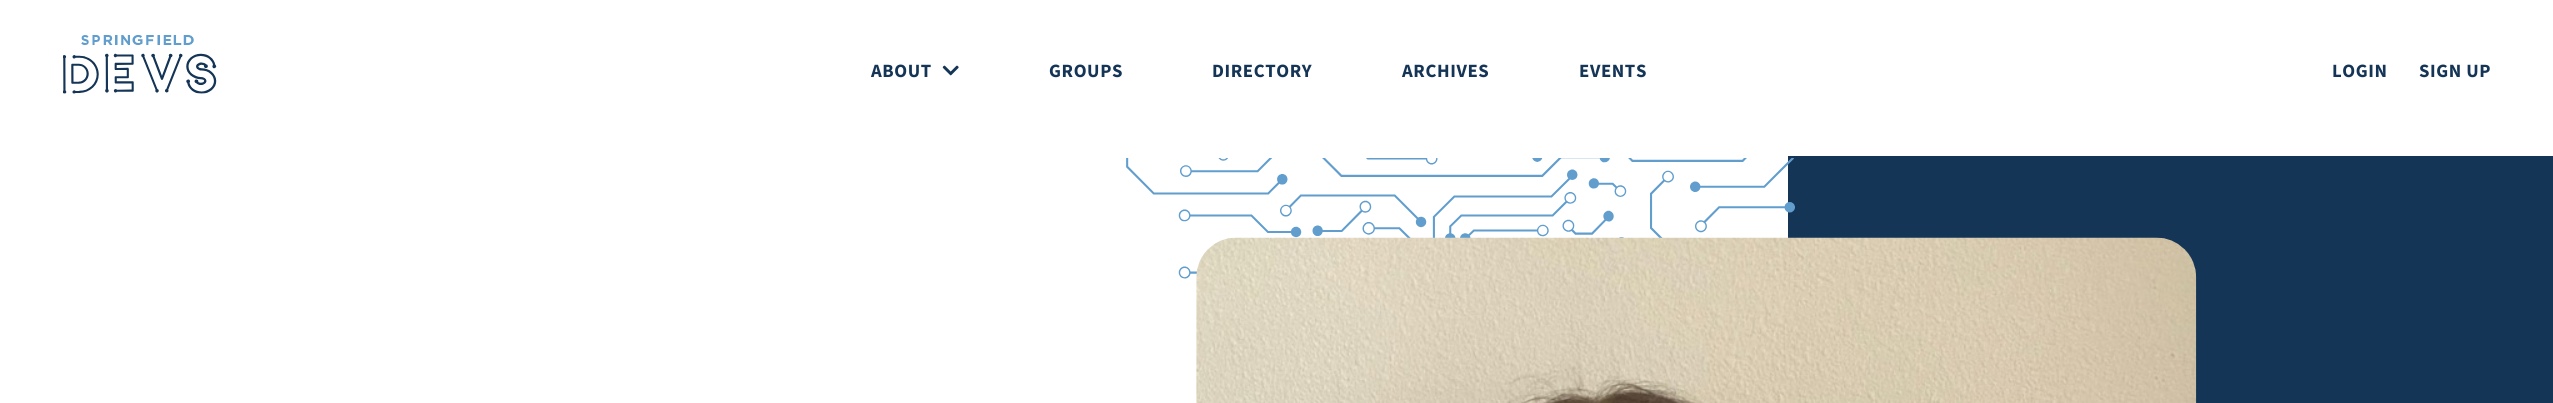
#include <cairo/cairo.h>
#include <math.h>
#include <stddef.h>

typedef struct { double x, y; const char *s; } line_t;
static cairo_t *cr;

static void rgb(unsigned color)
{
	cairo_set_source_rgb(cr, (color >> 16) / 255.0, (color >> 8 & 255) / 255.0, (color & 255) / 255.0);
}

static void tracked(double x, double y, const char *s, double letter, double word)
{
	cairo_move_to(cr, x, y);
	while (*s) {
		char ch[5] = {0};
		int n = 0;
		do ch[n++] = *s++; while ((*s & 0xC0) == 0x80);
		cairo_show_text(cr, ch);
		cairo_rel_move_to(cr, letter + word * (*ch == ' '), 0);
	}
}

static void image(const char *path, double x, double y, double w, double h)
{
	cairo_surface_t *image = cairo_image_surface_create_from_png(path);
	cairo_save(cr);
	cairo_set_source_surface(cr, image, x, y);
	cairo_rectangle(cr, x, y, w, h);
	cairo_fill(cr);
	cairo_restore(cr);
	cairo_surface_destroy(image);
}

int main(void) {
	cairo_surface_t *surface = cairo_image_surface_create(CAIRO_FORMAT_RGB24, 2553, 403);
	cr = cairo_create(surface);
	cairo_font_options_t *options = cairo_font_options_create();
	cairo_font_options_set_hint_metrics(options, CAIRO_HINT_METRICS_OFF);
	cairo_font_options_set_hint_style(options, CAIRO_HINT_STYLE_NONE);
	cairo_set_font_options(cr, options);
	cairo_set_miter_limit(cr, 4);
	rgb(0xffffff);
	cairo_paint(cr);
	image("img/1.png", 63, 35, 154, 59);
	image("img/2.png", 942, 65, 17, 11);
	rgb(0x153557);
	cairo_rectangle(cr, 1788, 156, 765, 247);
	cairo_fill(cr);
	image("img/3.png", 1126, 158, 669, 121);
	image("img/4.png", 1196, 237, 1001, 166);
	cairo_select_font_face(cr, "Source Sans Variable", CAIRO_FONT_SLANT_NORMAL, CAIRO_FONT_WEIGHT_BOLD);
	cairo_set_font_size(cr, 18.75);
	{
		static const line_t items[] = {
			{871, 77, "ABOUT"},
			{1049, 77, "GROUPS"},
			{1212, 77, "DIRECTORY"},
			{1402, 77, "ARCHIVES"},
			{1579, 77, "EVENTS"},
			{2332, 77, "LOGIN"},
			{2419, 77, "SIGN UP"},
		};
		for (size_t i = 0; i < sizeof items / sizeof *items; i++) {
			tracked(items[i].x, items[i].y, items[i].s, 0.6, 0);
		}
	}
	cairo_surface_write_to_png(surface, "page.png");
	cairo_font_options_destroy(options);
	cairo_destroy(cr);
	cairo_surface_destroy(surface);
	return 0;
}
